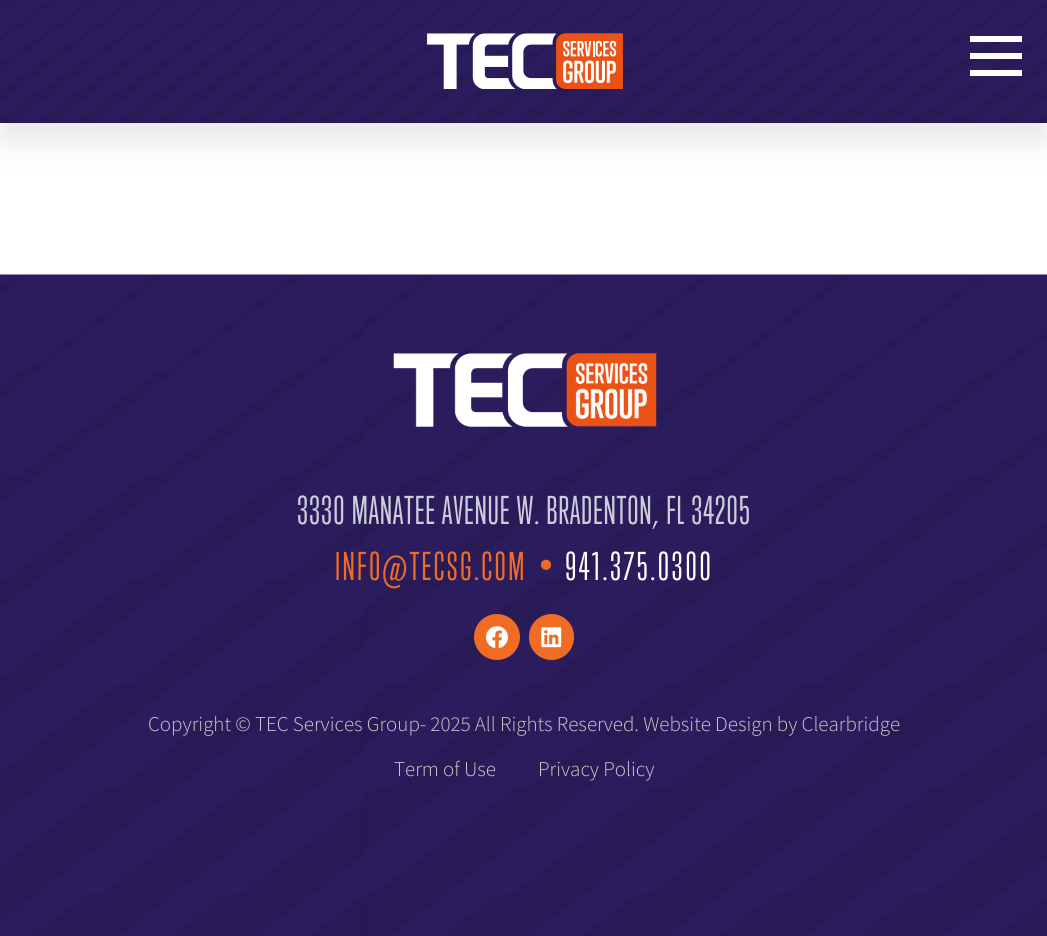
#include <cairo/cairo.h>
#include <math.h>
#include <stddef.h>

typedef struct { double x, y; const char *s; } line_t;
typedef struct { double x, y, w, h; unsigned color; } box_t;
static cairo_t *cr;

static void rgb(unsigned color)
{
	cairo_set_source_rgb(cr, (color >> 16) / 255.0, (color >> 8 & 255) / 255.0, (color & 255) / 255.0);
}

static void tracked(double x, double y, const char *s, double letter, double word)
{
	cairo_move_to(cr, x, y);
	while (*s) {
		char ch[5] = {0};
		int n = 0;
		do ch[n++] = *s++; while ((*s & 0xC0) == 0x80);
		cairo_show_text(cr, ch);
		cairo_rel_move_to(cr, letter + word * (*ch == ' '), 0);
	}
}

static void rrect(double x, double y, double w, double h, double r)
{
	cairo_new_sub_path(cr);
	cairo_arc(cr, x + w - r, y + h - r, r, 0, M_PI / 2);
	cairo_arc(cr, x + r, y + h - r, r, M_PI / 2, M_PI);
	cairo_arc(cr, x + r, y + r, r, M_PI, 1.5 * M_PI);
	cairo_arc(cr, x + w - r, y + r, r, 1.5 * M_PI, 2 * M_PI);
	cairo_close_path(cr);
}

static void soft_shadow(double x, double y, double w, double h, double r, double blur, double alpha)
{
	cairo_push_group_with_content(cr, CAIRO_CONTENT_ALPHA);
	cairo_set_operator(cr, CAIRO_OPERATOR_SOURCE);
	for (int i = 15; i >= -15 && fmin(w, h) + blur * i / 3 > 0; i -= 2) {
		double e = blur * i / 6;
		cairo_set_source_rgba(cr, 0, 0, 0, alpha * erfc((i - 1) / 8.5) / 2);
		rrect(x - e, y - e, w + 2 * e, h + 2 * e, fmax(0, fmin(r + e + blur * .6, fmin(w, h) / 2 + e)));
		cairo_fill(cr);
	}
	cairo_pattern_t *soft = cairo_pop_group(cr);
	cairo_mask(cr, soft);
	cairo_pattern_destroy(soft);
}

static void image(const char *path, double x, double y, double w, double h)
{
	cairo_surface_t *image = cairo_image_surface_create_from_png(path);
	cairo_save(cr);
	cairo_set_source_surface(cr, image, x, y);
	cairo_rectangle(cr, x, y, w, h);
	cairo_fill(cr);
	cairo_restore(cr);
	cairo_surface_destroy(image);
}

int main(void) {
	cairo_surface_t *surface = cairo_image_surface_create(CAIRO_FORMAT_RGB24, 1047, 936);
	cr = cairo_create(surface);
	cairo_font_options_t *options = cairo_font_options_create();
	cairo_font_options_set_hint_metrics(options, CAIRO_HINT_METRICS_OFF);
	cairo_font_options_set_hint_style(options, CAIRO_HINT_STYLE_NONE);
	cairo_set_font_options(cr, options);
	cairo_set_miter_limit(cr, 4);
	rgb(0xffffff);
	cairo_paint(cr);
	rgb(0x000000);
	soft_shadow(0, 18, 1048, 122, 0, 17.5, 0.1);
	rgb(0x271a55);
	cairo_rectangle(cr, 0, 122, 1047, 1);
	cairo_fill(cr);
	image("img/1.png", 0, 0, 1047, 122);
	image("img/2.png", 427, 33, 196, 56);
	{
		static const box_t items[] = {
			{970, 36, 52, 6, 0xffffff},
			{970, 53, 52, 6, 0xffffff},
			{970, 70, 52, 6, 0xffffff},
		};
		for (size_t i = 0; i < sizeof items / sizeof *items; i++) {
			rgb(items[i].color);
			cairo_rectangle(cr, items[i].x, items[i].y, items[i].w, items[i].h);
			cairo_fill(cr);
		}
	}
	image("img/3.png", 0, 274, 1047, 662);
	image("img/4.png", 393, 353, 264, 74);
	image("img/5.png", 540, 559, 12, 11);
	rgb(0xf06b24);
	cairo_arc(cr, 497, 637, 23, 0, 2 * M_PI);
	cairo_fill(cr);
	image("img/6.png", 486, 626, 22, 22);
	rrect(529, 614, 45, 46, 22.5);
	cairo_fill(cr);
	image("img/7.png", 541, 627, 21, 21);
	cairo_select_font_face(cr, "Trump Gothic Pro", CAIRO_FONT_SLANT_NORMAL, CAIRO_FONT_WEIGHT_NORMAL);
	cairo_set_font_size(cr, 36.75);
	rgb(0xd0cddb);
	tracked(297, 524, "3330 MANATEE AVENUE W. BRADENTON, FL 34205", 0.7, 1);
	rgb(0xf06b24);
	tracked(335, 580, "INFO@TECSG.COM", 2.25, 0);
	rgb(0xffffff);
	tracked(565, 580, "941.375.0300", 2.25, 0);
	cairo_select_font_face(cr, "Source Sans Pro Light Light", CAIRO_FONT_SLANT_NORMAL, CAIRO_FONT_WEIGHT_NORMAL);
	cairo_set_font_size(cr, 21);
	rgb(0xcccccc);
	{
		static const line_t items[] = {
			{148, 731, "Copyright © TEC Services Group- 2025 All Rights Reserved. Website Design by Clearbridge"},
			{394, 776, "Term of Use"},
			{538, 776, "Privacy Policy"},
		};
		for (size_t i = 0; i < sizeof items / sizeof *items; i++) {
			cairo_move_to(cr, items[i].x, items[i].y);
			cairo_show_text(cr, items[i].s);
		}
	}
	cairo_surface_write_to_png(surface, "page.png");
	cairo_font_options_destroy(options);
	cairo_destroy(cr);
	cairo_surface_destroy(surface);
	return 0;
}
